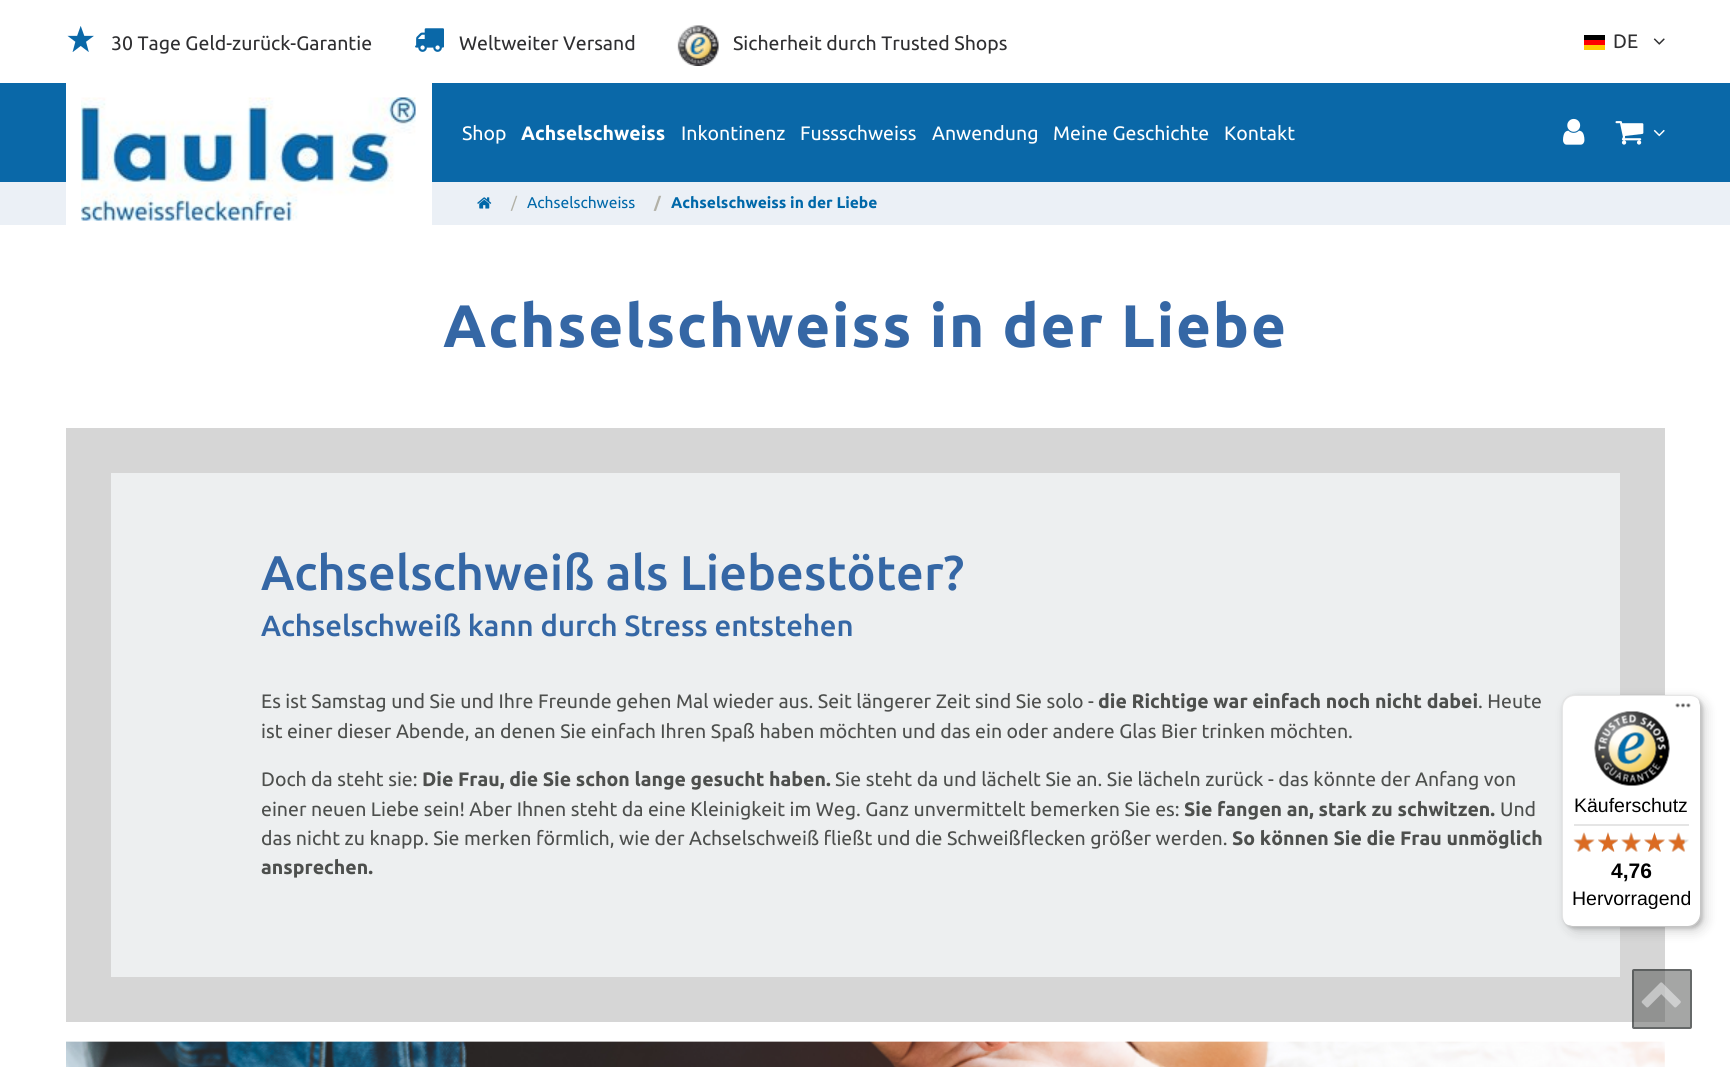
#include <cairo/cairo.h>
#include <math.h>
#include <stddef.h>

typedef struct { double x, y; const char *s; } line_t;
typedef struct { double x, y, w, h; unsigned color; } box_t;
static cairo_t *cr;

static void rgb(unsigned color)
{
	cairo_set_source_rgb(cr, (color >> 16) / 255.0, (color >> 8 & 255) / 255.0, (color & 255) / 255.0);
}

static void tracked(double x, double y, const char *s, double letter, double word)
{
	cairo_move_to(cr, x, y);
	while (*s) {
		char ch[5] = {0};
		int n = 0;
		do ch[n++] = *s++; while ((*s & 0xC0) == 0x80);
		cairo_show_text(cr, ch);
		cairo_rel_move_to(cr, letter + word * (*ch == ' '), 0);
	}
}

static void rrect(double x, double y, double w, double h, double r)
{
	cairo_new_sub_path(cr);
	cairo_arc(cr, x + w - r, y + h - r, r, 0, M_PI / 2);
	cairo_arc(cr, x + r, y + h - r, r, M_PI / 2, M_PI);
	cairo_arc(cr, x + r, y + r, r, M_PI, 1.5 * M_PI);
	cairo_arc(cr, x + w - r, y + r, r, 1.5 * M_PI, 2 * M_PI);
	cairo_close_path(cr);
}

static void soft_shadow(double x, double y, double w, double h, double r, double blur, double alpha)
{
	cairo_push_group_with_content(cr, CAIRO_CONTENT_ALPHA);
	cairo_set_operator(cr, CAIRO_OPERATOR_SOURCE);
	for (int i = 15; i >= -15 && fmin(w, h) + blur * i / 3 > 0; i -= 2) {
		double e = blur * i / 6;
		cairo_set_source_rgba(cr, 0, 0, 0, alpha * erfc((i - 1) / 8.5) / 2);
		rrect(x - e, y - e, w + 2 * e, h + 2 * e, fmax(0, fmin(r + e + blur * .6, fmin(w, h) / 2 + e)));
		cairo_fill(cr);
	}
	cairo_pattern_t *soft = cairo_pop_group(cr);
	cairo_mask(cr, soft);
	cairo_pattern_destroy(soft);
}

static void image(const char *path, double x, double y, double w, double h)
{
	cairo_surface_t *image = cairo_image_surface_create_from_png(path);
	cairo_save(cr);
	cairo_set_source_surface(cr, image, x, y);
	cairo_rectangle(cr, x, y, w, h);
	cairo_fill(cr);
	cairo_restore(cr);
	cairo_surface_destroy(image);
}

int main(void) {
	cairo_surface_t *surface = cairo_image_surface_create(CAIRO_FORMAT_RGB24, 1730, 1067);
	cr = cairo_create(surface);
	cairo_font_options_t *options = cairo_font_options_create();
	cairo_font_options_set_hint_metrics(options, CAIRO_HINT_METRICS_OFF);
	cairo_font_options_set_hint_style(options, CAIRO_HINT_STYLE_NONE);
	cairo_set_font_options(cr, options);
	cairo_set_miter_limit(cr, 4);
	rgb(0xffffff);
	cairo_paint(cr);
	image("img/1.png", 67, 26, 27, 26);
	image("img/2.png", 415, 28, 29, 24);
	image("img/3.png", 677, 25, 42, 41);
	{
		static const box_t items[] = {
			{1584, 45, 21, 5, 0xffcc00},
			{1584, 35, 21, 5, 0x000000},
			{1584, 40, 21, 5, 0xff0000},
		};
		for (size_t i = 0; i < sizeof items / sizeof *items; i++) {
			rgb(items[i].color);
			cairo_rectangle(cr, items[i].x, items[i].y, items[i].w, items[i].h);
			cairo_fill(cr);
		}
	}
	image("img/4.png", 1653, 38, 12, 7);
	{
		static const box_t items[] = {
			{0, 83, 1730, 99, 0x0a68a8},
			{0, 182, 1730, 43, 0xebf0f6},
			{66, 83, 366, 142, 0xffffff},
		};
		for (size_t i = 0; i < sizeof items / sizeof *items; i++) {
			rgb(items[i].color);
			cairo_rectangle(cr, items[i].x, items[i].y, items[i].w, items[i].h);
			cairo_fill(cr);
		}
	}
	image("img/5.png", 81, 97, 335, 124);
	image("img/6.png", 1563, 118, 22, 27);
	image("img/7.png", 1615, 121, 29, 24);
	image("img/8.png", 1653, 129, 12, 8);
	image("img/9.png", 477, 197, 15, 12);
	rgb(0xd6d6d6);
	cairo_rectangle(cr, 66, 428, 1599, 594);
	cairo_fill(cr);
	rgb(0xedeff0);
	cairo_rectangle(cr, 111, 473, 1509, 504);
	cairo_fill(cr);
	image("img/10.png", 66, 1041, 1599, 26);
	cairo_set_source_rgba(cr, 0.302, 0.31, 0.302, 0.5);
	rrect(1632, 969, 60, 60, 2);
	cairo_fill(cr);
	rrect(1633, 970, 58, 58, 1);
	cairo_set_source_rgba(cr, 0.157, 0.176, 0.184, 0.5);
	cairo_stroke(cr);
	image("img/11.png", 1641, 982, 40, 26);
	rgb(0x000000);
	soft_shadow(1566, 699, 140, 233, 12, 6, 0.15);
	soft_shadow(1563, 696, 140, 233, 12, 1.5, 0.15);
	rgb(0xffffff);
	rrect(1562, 695, 139, 232, 12);
	cairo_fill(cr);
	cairo_set_source_rgba(cr, 0, 0, 0, 0.1);
	cairo_new_path(cr);
	cairo_move_to(cr, 1575, 696);
	cairo_line_to(cr, 1690, 696);
	cairo_curve_to(cr, 1693, 696, 1695, 697, 1697, 698);
	cairo_curve_to(cr, 1695, 696, 1692, 695, 1689, 695);
	cairo_line_to(cr, 1574, 695);
	cairo_curve_to(cr, 1567, 695, 1562, 700, 1562, 707);
	cairo_line_to(cr, 1562, 915);
	cairo_curve_to(cr, 1562, 918, 1563, 921, 1565, 923);
	cairo_curve_to(cr, 1564, 921, 1563, 919, 1563, 916);
	cairo_line_to(cr, 1563, 708);
	cairo_curve_to(cr, 1563, 701, 1568, 696, 1575, 696);
	cairo_close_path(cr);
	cairo_fill(cr);
	cairo_set_source_rgba(cr, 0, 0, 0, 0.2);
	cairo_new_path(cr);
	cairo_move_to(cr, 1568, 925);
	cairo_curve_to(cr, 1569, 926, 1572, 927, 1574, 927);
	cairo_line_to(cr, 1689, 927);
	cairo_curve_to(cr, 1696, 927, 1701, 922, 1701, 915);
	cairo_line_to(cr, 1701, 707);
	cairo_curve_to(cr, 1701, 705, 1700, 702, 1699, 701);
	cairo_line_to(cr, 1700, 705);
	cairo_line_to(cr, 1700, 914);
	cairo_curve_to(cr, 1700, 920, 1694, 926, 1688, 926);
	cairo_line_to(cr, 1572, 926);
	cairo_close_path(cr);
	cairo_fill(cr);
	cairo_set_source_rgba(cr, 0.196, 0.196, 0.196, 0.2);
	cairo_new_path(cr);
	cairo_move_to(cr, 1566, 924);
	cairo_curve_to(cr, 1568, 926, 1571, 927, 1574, 927);
	cairo_line_to(cr, 1689, 927);
	cairo_curve_to(cr, 1696, 927, 1701, 922, 1701, 915);
	cairo_line_to(cr, 1701, 707);
	cairo_curve_to(cr, 1701, 704, 1700, 701, 1698, 699);
	cairo_curve_to(cr, 1699, 701, 1700, 703, 1700, 706);
	cairo_line_to(cr, 1700, 914);
	cairo_curve_to(cr, 1700, 921, 1695, 926, 1688, 926);
	cairo_line_to(cr, 1573, 926);
	cairo_curve_to(cr, 1570, 926, 1568, 925, 1566, 924);
	cairo_close_path(cr);
	cairo_fill(cr);
	cairo_set_source_rgba(cr, 1, 1, 1, 0.3);
	cairo_new_path(cr);
	cairo_move_to(cr, 1566, 924);
	cairo_curve_to(cr, 1568, 926, 1571, 927, 1574, 927);
	cairo_line_to(cr, 1689, 927);
	cairo_curve_to(cr, 1696, 927, 1701, 922, 1701, 915);
	cairo_line_to(cr, 1701, 707);
	cairo_curve_to(cr, 1701, 704, 1700, 701, 1698, 699);
	cairo_curve_to(cr, 1699, 701, 1700, 703, 1700, 706);
	cairo_line_to(cr, 1700, 914);
	cairo_curve_to(cr, 1700, 921, 1695, 926, 1688, 926);
	cairo_line_to(cr, 1573, 926);
	cairo_curve_to(cr, 1570, 926, 1568, 925, 1566, 924);
	cairo_close_path(cr);
	cairo_fill(cr);
	image("img/12.png", 1675, 703, 16, 5);
	image("img/13.png", 1594, 711, 76, 75);
	rgb(0xe5e5e5);
	cairo_rectangle(cr, 1574, 824, 115, 2);
	cairo_fill(cr);
	image("img/19.png", 1574, 833, 20, 19);
	image("img/14.png", 1573, 832, 22, 20);
	image("img/20.png", 1598, 832, 20, 20);
	image("img/15.png", 1598, 832, 20, 20);
	image("img/21.png", 1621, 832, 20, 20);
	image("img/16.png", 1621, 832, 20, 20);
	image("img/22.png", 1644, 832, 21, 20);
	image("img/17.png", 1644, 832, 21, 20);
	image("img/23.png", 1668, 833, 21, 19);
	image("img/18.png", 1668, 832, 17, 20);
	cairo_select_font_face(cr, "Ubuntu", CAIRO_FONT_SLANT_NORMAL, CAIRO_FONT_WEIGHT_NORMAL);
	cairo_set_font_size(cr, 19.5);
	rgb(0x2f2f31);
	{
		static const line_t items[] = {
			{111, 50, "30 Tage Geld-zurück-Garantie"},
			{459, 50, "Weltweiter Versand"},
			{733, 50, "Sicherheit durch Trusted Shops"},
			{1613, 48, "DE"},
		};
		for (size_t i = 0; i < sizeof items / sizeof *items; i++) {
			cairo_move_to(cr, items[i].x, items[i].y);
			cairo_show_text(cr, items[i].s);
		}
	}
	rgb(0xffffff);
	cairo_move_to(cr, 462, 140);
	cairo_show_text(cr, "Shop");
	cairo_select_font_face(cr, "Ubuntu", CAIRO_FONT_SLANT_NORMAL, CAIRO_FONT_WEIGHT_BOLD);
	cairo_move_to(cr, 521, 140);
	cairo_show_text(cr, "Achselschweiss");
	cairo_select_font_face(cr, "Ubuntu", CAIRO_FONT_SLANT_NORMAL, CAIRO_FONT_WEIGHT_NORMAL);
	{
		static const line_t items[] = {
			{681, 140, "Inkontinenz"},
			{800, 140, "Fussschweiss"},
			{932, 140, "Anwendung"},
			{1053, 140, "Meine Geschichte"},
			{1224, 140, "Kontakt"},
		};
		for (size_t i = 0; i < sizeof items / sizeof *items; i++) {
			cairo_move_to(cr, items[i].x, items[i].y);
			cairo_show_text(cr, items[i].s);
		}
	}
	cairo_set_font_size(cr, 15.6);
	rgb(0xb2b1a7);
	cairo_move_to(cr, 511, 208);
	cairo_show_text(cr, "/");
	rgb(0x0068a9);
	cairo_move_to(cr, 527, 208);
	cairo_show_text(cr, "Achselschweiss");
	cairo_select_font_face(cr, "Ubuntu", CAIRO_FONT_SLANT_NORMAL, CAIRO_FONT_WEIGHT_BOLD);
	rgb(0xb2b1a7);
	cairo_move_to(cr, 654, 208);
	cairo_show_text(cr, "/");
	rgb(0x0068a9);
	cairo_move_to(cr, 671, 208);
	cairo_show_text(cr, "Achselschweiss in der Liebe");
	cairo_set_font_size(cr, 60);
	rgb(0x3567a5);
	tracked(443, 347, "Achselschweiss in der Liebe", 1.9, 0);
	cairo_select_font_face(cr, "Ubuntu Medium", CAIRO_FONT_SLANT_NORMAL, CAIRO_FONT_WEIGHT_NORMAL);
	cairo_set_font_size(cr, 48.75);
	cairo_move_to(cr, 261, 590);
	cairo_show_text(cr, "Achselschweiß als Liebestöter?");
	cairo_set_font_size(cr, 29.25);
	cairo_move_to(cr, 261, 636);
	cairo_show_text(cr, "Achselschweiß kann durch Stress entstehen");
	cairo_select_font_face(cr, "Ubuntu", CAIRO_FONT_SLANT_NORMAL, CAIRO_FONT_WEIGHT_NORMAL);
	cairo_set_font_size(cr, 19.5);
	rgb(0x4d4f4d);
	cairo_move_to(cr, 261, 708);
	cairo_show_text(cr, "Es ist Samstag und Sie und Ihre Freunde gehen Mal wieder aus. Seit längerer Zeit sind Sie solo -");
	cairo_select_font_face(cr, "Ubuntu", CAIRO_FONT_SLANT_NORMAL, CAIRO_FONT_WEIGHT_BOLD);
	cairo_move_to(cr, 1098, 708);
	cairo_show_text(cr, "die Richtige war einfach noch nicht dabei");
	cairo_select_font_face(cr, "Ubuntu", CAIRO_FONT_SLANT_NORMAL, CAIRO_FONT_WEIGHT_NORMAL);
	{
		static const line_t items[] = {
			{1478, 708, ". Heute"},
			{261, 738, "ist einer dieser Abende, an denen Sie einfach Ihren Spaß haben möchten und das ein oder andere Glas Bier trinken möchten."},
			{261, 786, "Doch da steht sie:"},
		};
		for (size_t i = 0; i < sizeof items / sizeof *items; i++) {
			cairo_move_to(cr, items[i].x, items[i].y);
			cairo_show_text(cr, items[i].s);
		}
	}
	cairo_select_font_face(cr, "Ubuntu", CAIRO_FONT_SLANT_NORMAL, CAIRO_FONT_WEIGHT_BOLD);
	cairo_move_to(cr, 422, 786);
	cairo_show_text(cr, "Die Frau, die Sie schon lange gesucht haben.");
	cairo_select_font_face(cr, "Ubuntu", CAIRO_FONT_SLANT_NORMAL, CAIRO_FONT_WEIGHT_NORMAL);
	cairo_move_to(cr, 835, 786);
	cairo_show_text(cr, "Sie steht da und lächelt Sie an. Sie lächeln zurück - das könnte der Anfang von");
	cairo_move_to(cr, 261, 816);
	cairo_show_text(cr, "einer neuen Liebe sein! Aber Ihnen steht da eine Kleinigkeit im Weg. Ganz unvermittelt bemerken Sie es:");
	cairo_select_font_face(cr, "Ubuntu", CAIRO_FONT_SLANT_NORMAL, CAIRO_FONT_WEIGHT_BOLD);
	cairo_move_to(cr, 1184, 816);
	cairo_show_text(cr, "Sie fangen an, stark zu schwitzen.");
	cairo_select_font_face(cr, "Ubuntu", CAIRO_FONT_SLANT_NORMAL, CAIRO_FONT_WEIGHT_NORMAL);
	cairo_move_to(cr, 1500, 816);
	cairo_show_text(cr, "Und");
	cairo_move_to(cr, 261, 845);
	cairo_show_text(cr, "das nicht zu knapp. Sie merken förmlich, wie der Achselschweiß fließt und die Schweißflecken größer werden.");
	cairo_select_font_face(cr, "Ubuntu", CAIRO_FONT_SLANT_NORMAL, CAIRO_FONT_WEIGHT_BOLD);
	cairo_move_to(cr, 1232, 845);
	cairo_show_text(cr, "So können Sie die Frau unmöglich");
	cairo_move_to(cr, 261, 874);
	cairo_show_text(cr, "ansprechen.");
	cairo_select_font_face(cr, "Liberation Sans", CAIRO_FONT_SLANT_NORMAL, CAIRO_FONT_WEIGHT_NORMAL);
	rgb(0x000000);
	cairo_move_to(cr, 1574, 812);
	cairo_show_text(cr, "Käuferschutz");
	cairo_select_font_face(cr, "Liberation Sans", CAIRO_FONT_SLANT_NORMAL, CAIRO_FONT_WEIGHT_BOLD);
	cairo_set_font_size(cr, 21);
	cairo_move_to(cr, 1611, 878);
	cairo_show_text(cr, "4,76");
	cairo_select_font_face(cr, "Liberation Sans", CAIRO_FONT_SLANT_NORMAL, CAIRO_FONT_WEIGHT_NORMAL);
	cairo_set_font_size(cr, 19.5);
	cairo_move_to(cr, 1572, 905);
	cairo_show_text(cr, "Hervorragend");
	cairo_surface_write_to_png(surface, "page.png");
	cairo_font_options_destroy(options);
	cairo_destroy(cr);
	cairo_surface_destroy(surface);
	return 0;
}
